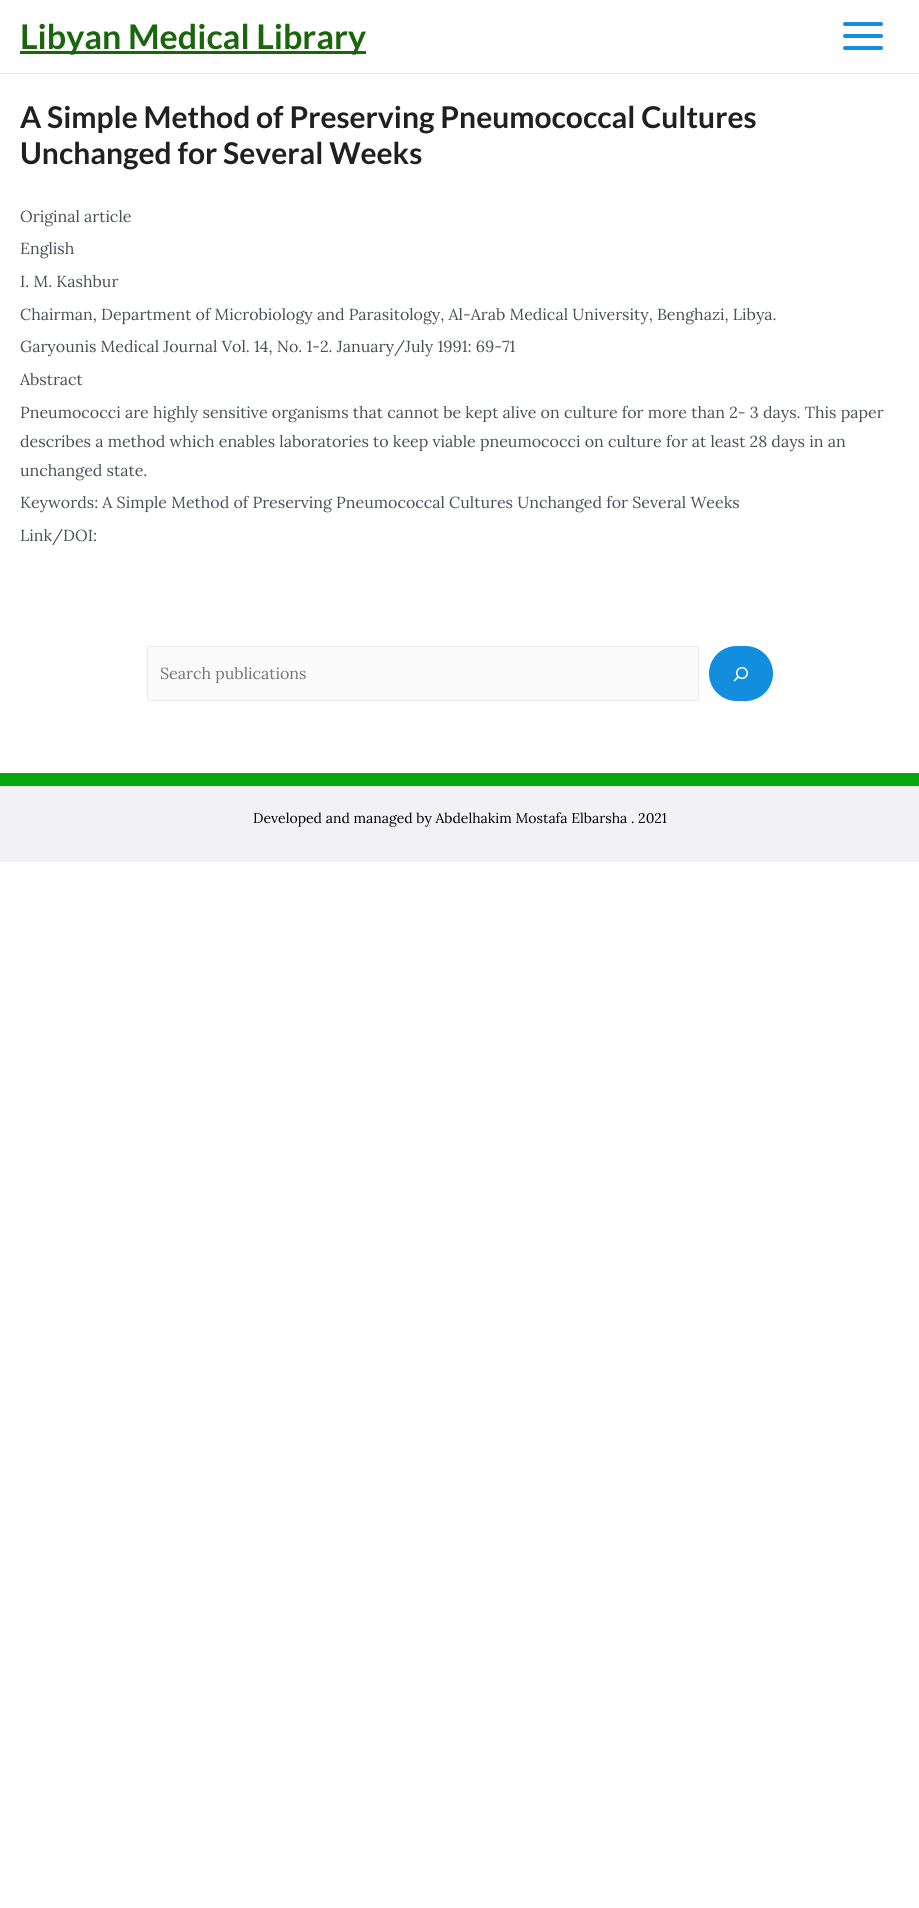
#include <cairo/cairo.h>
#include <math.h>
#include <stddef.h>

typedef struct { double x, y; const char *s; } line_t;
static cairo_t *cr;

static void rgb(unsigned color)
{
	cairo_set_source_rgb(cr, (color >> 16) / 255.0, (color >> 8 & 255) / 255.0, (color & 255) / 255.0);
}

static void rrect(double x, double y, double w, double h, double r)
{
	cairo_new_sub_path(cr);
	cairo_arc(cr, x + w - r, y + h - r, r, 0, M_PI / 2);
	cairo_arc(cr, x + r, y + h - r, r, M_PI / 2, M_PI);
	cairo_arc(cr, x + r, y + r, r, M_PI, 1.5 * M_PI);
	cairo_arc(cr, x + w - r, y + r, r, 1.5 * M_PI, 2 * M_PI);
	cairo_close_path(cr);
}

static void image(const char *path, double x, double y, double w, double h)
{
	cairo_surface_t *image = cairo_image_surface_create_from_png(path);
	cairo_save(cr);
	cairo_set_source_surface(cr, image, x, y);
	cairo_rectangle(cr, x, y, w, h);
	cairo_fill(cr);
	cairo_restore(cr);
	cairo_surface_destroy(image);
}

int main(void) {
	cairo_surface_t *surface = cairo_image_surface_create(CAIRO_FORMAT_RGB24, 919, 1908);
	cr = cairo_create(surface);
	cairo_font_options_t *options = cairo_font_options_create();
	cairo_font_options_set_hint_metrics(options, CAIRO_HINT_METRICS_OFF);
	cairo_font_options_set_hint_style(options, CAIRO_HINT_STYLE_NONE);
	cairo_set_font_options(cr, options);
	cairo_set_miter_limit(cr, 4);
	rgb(0xffffff);
	cairo_paint(cr);
	rgb(0xeaeaea);
	cairo_rectangle(cr, 0, 73, 919, 1);
	cairo_fill(cr);
	rgb(0x1a660c);
	cairo_rectangle(cr, 20, 51, 346, 3);
	cairo_fill(cr);
	image("img/1.png", 843, 22, 40, 28);
	rgb(0xfafafa);
	rrect(147.5, 646.5, 551, 54, 1.5);
	cairo_fill_preserve(cr);
	rgb(0xeaeaea);
	cairo_set_line_width(cr, 1);
	cairo_stroke(cr);
	rgb(0x138ddd);
	rrect(709, 646, 64, 55, 27.5);
	cairo_fill(cr);
	image("img/2.png", 733, 667, 16, 15);
	rgb(0xf2f2f5);
	cairo_rectangle(cr, 0, 786, 919, 76);
	cairo_fill(cr);
	rgb(0x06a90c);
	cairo_rectangle(cr, 0, 773, 919, 13);
	cairo_fill(cr);
	cairo_select_font_face(cr, "Lato", CAIRO_FONT_SLANT_NORMAL, CAIRO_FONT_WEIGHT_BOLD);
	cairo_set_font_size(cr, 34);
	rgb(0x1a660c);
	cairo_move_to(cr, 20, 49);
	cairo_show_text(cr, "Libyan Medical Library");
	cairo_set_font_size(cr, 30);
	rgb(0x211f1f);
	cairo_move_to(cr, 20, 128);
	cairo_show_text(cr, "A Simple Method of Preserving Pneumococcal Cultures");
	cairo_move_to(cr, 20, 164);
	cairo_show_text(cr, "Unchanged for Several Weeks");
	cairo_select_font_face(cr, "Lora", CAIRO_FONT_SLANT_NORMAL, CAIRO_FONT_WEIGHT_NORMAL);
	cairo_set_font_size(cr, 16);
	rgb(0x4b4f58);
	{
		static const line_t items[] = {
			{20, 222, "Original article"},
			{20, 254, "English"},
			{20, 287, "I. M. Kashbur"},
			{20, 320, "Chairman, Department of Microbiology and Parasitology, Al-Arab Medical University, Benghazi, Libya."},
			{20, 352, "Garyounis Medical Journal Vol. 14, No. 1-2. January/July 1991: 69-71"},
			{20, 385, "Abstract"},
			{20, 418, "Pneumococci are highly sensitive organisms that cannot be kept alive on culture for more than 2- 3 days. This paper"},
			{20, 447, "describes a method which enables laboratories to keep viable pneumococci on culture for at least 28 days in an"},
			{20, 476, "unchanged state."},
			{20, 508, "Keywords: A Simple Method of Preserving Pneumococcal Cultures Unchanged for Several Weeks"},
			{20, 541, "Link/DOI:"},
		};
		for (size_t i = 0; i < sizeof items / sizeof *items; i++) {
			cairo_move_to(cr, items[i].x, items[i].y);
			cairo_show_text(cr, items[i].s);
		}
	}
	rgb(0x757575);
	cairo_move_to(cr, 160, 679);
	cairo_show_text(cr, "Search publications");
	cairo_set_font_size(cr, 14);
	rgb(0x000000);
	cairo_move_to(cr, 253, 823);
	cairo_show_text(cr, "Developed and managed by Abdelhakim Mostafa Elbarsha . 2021");
	cairo_surface_write_to_png(surface, "page.png");
	cairo_font_options_destroy(options);
	cairo_destroy(cr);
	cairo_surface_destroy(surface);
	return 0;
}
